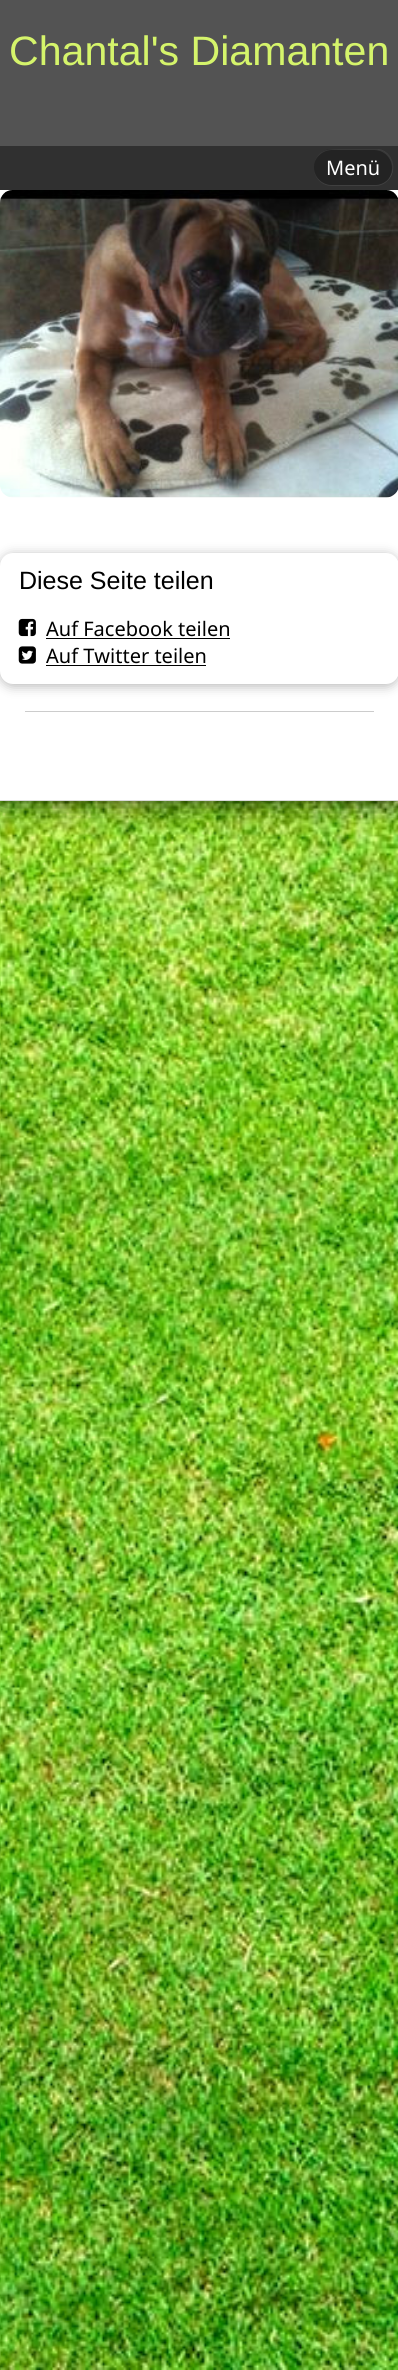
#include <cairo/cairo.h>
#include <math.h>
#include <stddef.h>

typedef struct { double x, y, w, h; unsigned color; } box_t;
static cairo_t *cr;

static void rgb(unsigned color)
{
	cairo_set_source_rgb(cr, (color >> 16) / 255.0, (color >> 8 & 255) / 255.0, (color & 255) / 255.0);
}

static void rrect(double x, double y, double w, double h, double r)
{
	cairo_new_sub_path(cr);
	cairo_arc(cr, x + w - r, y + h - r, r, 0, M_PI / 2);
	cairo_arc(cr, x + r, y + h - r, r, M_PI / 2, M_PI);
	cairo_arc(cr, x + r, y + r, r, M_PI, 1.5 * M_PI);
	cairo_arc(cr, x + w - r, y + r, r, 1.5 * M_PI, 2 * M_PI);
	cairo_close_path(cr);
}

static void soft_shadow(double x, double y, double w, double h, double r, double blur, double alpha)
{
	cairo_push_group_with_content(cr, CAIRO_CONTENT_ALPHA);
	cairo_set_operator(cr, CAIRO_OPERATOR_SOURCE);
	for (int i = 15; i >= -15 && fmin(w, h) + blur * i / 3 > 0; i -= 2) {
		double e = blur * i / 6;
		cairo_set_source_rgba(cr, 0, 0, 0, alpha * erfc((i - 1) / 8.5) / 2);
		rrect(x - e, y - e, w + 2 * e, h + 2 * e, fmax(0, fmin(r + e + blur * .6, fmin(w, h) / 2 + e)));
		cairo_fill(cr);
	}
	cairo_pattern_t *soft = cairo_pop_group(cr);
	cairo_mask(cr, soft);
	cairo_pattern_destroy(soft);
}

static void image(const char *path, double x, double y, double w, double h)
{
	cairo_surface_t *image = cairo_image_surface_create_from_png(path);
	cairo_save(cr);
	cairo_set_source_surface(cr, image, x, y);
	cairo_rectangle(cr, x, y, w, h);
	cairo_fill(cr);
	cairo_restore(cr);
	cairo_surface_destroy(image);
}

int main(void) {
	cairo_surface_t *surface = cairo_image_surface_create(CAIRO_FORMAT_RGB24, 398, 2370);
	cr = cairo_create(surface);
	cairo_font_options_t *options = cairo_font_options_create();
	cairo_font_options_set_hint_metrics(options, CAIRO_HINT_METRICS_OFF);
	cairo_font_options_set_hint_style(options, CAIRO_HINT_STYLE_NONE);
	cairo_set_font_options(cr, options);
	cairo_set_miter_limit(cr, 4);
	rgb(0xffffff);
	cairo_paint(cr);
	image("img/1.png", 0, 801, 398, 1569);
	rgb(0x000000);
	soft_shadow(0, 0, 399, 801, 0, 15, 0.8);
	{
		static const box_t items[] = {
			{0, 190, 398, 610, 0xffffff},
			{0, 800, 398, 1, 0xd9d9d9},
			{0, 0, 398, 146, 0x535353},
			{0, 146, 398, 44, 0x303030},
		};
		for (size_t i = 0; i < sizeof items / sizeof *items; i++) {
			rgb(items[i].color);
			cairo_rectangle(cr, items[i].x, items[i].y, items[i].w, items[i].h);
			cairo_fill(cr);
		}
	}
	rgb(0x404040);
	cairo_new_path(cr);
	cairo_move_to(cr, 314, 171);
	cairo_curve_to(cr, 316, 180, 323, 186, 332, 186);
	cairo_line_to(cr, 375, 186);
	cairo_curve_to(cr, 385, 186, 393, 178, 393, 168);
	cairo_curve_to(cr, 393, 165, 392, 163, 391, 160);
	cairo_curve_to(cr, 392, 162, 392, 165, 392, 167);
	cairo_curve_to(cr, 392, 177, 384, 185, 374, 185);
	cairo_line_to(cr, 332, 185);
	cairo_curve_to(cr, 323, 185, 316, 179, 314, 171);
	cairo_close_path(cr);
	cairo_fill(cr);
	rgb(0x232323);
	rrect(314, 149, 79, 36, 18);
	cairo_fill(cr);
	cairo_set_source_rgba(cr, 1, 1, 1, 0.1);
	cairo_new_path(cr);
	cairo_move_to(cr, 332, 150);
	cairo_line_to(cr, 374, 150);
	cairo_curve_to(cr, 384, 150, 392, 158, 392, 168);
	cairo_curve_to(cr, 392, 173, 390, 177, 388, 180);
	cairo_curve_to(cr, 398, 170, 393, 152, 379, 149);
	cairo_line_to(cr, 339, 149);
	cairo_curve_to(cr, 331, 149, 322, 149, 317, 157);
	cairo_curve_to(cr, 315, 160, 314, 164, 314, 167);
	cairo_curve_to(cr, 314, 158, 322, 150, 332, 150);
	cairo_close_path(cr);
	cairo_fill(cr);
	image("img/2.png", 0, 190, 398, 308);
	rgb(0x000000);
	soft_shadow(0, 555, 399, 131, 13, 6, 0.29);
	rgb(0xffffff);
	rrect(0, 553, 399, 131, 13);
	cairo_fill(cr);
	image("img/3.png", 18, 618, 18, 19);
	rgb(0x000000);
	cairo_rectangle(cr, 46, 638, 184, 1);
	cairo_fill(cr);
	image("img/4.png", 18, 646, 18, 18);
	cairo_rectangle(cr, 46, 665, 160, 1);
	cairo_fill(cr);
	rgb(0xcccccc);
	cairo_rectangle(cr, 25, 711, 349, 1);
	cairo_fill(cr);
	cairo_select_font_face(cr, "Liberation Sans", CAIRO_FONT_SLANT_NORMAL, CAIRO_FONT_WEIGHT_NORMAL);
	cairo_set_font_size(cr, 41.1);
	rgb(0xd5f46b);
	cairo_move_to(cr, 9, 65);
	cairo_show_text(cr, "Chantal's Diamanten");
	cairo_select_font_face(cr, "Noto Sans", CAIRO_FONT_SLANT_NORMAL, CAIRO_FONT_WEIGHT_NORMAL);
	cairo_set_font_size(cr, 20);
	rgb(0xffffff);
	cairo_move_to(cr, 326, 175);
	cairo_show_text(cr, "Menü");
	cairo_select_font_face(cr, "Liberation Sans", CAIRO_FONT_SLANT_NORMAL, CAIRO_FONT_WEIGHT_NORMAL);
	cairo_set_font_size(cr, 25);
	rgb(0x000000);
	cairo_move_to(cr, 19, 589);
	cairo_show_text(cr, "Diese Seite teilen");
	cairo_select_font_face(cr, "Noto Sans", CAIRO_FONT_SLANT_NORMAL, CAIRO_FONT_WEIGHT_NORMAL);
	cairo_set_font_size(cr, 20);
	cairo_move_to(cr, 46, 636);
	cairo_show_text(cr, "Auf Facebook teilen");
	cairo_move_to(cr, 46, 663);
	cairo_show_text(cr, "Auf Twitter teilen");
	cairo_surface_write_to_png(surface, "page.png");
	cairo_font_options_destroy(options);
	cairo_destroy(cr);
	cairo_surface_destroy(surface);
	return 0;
}
